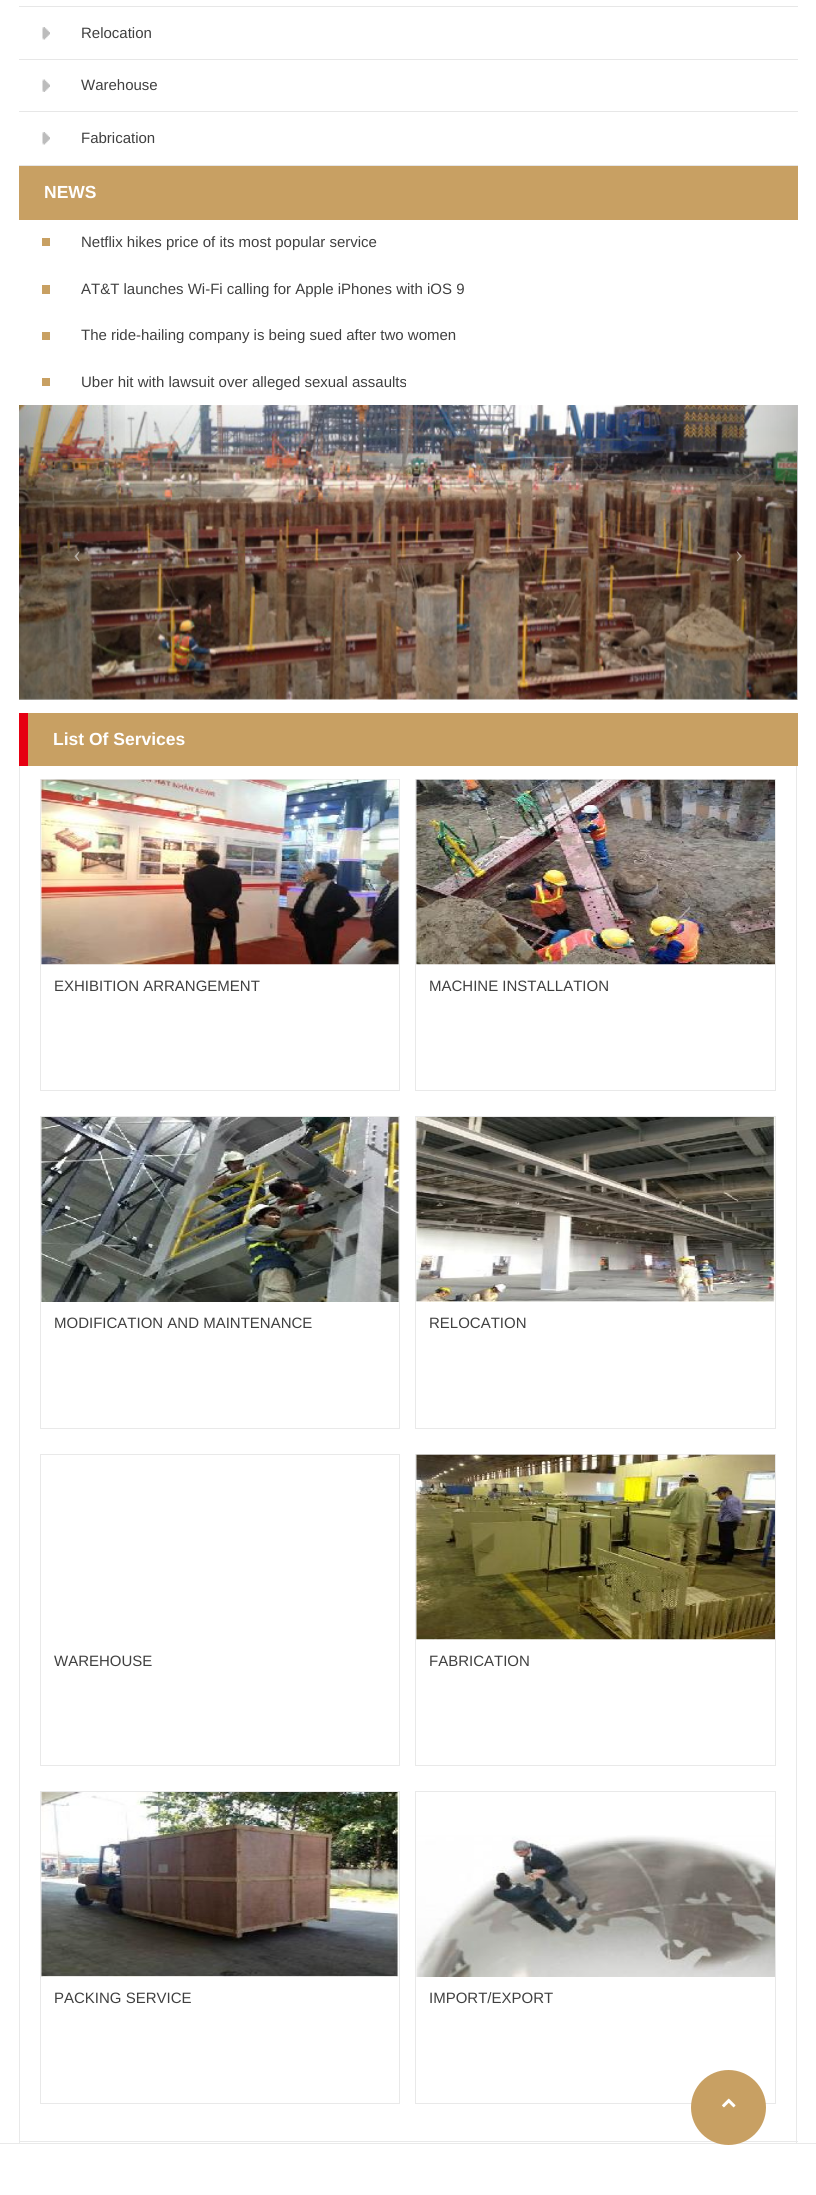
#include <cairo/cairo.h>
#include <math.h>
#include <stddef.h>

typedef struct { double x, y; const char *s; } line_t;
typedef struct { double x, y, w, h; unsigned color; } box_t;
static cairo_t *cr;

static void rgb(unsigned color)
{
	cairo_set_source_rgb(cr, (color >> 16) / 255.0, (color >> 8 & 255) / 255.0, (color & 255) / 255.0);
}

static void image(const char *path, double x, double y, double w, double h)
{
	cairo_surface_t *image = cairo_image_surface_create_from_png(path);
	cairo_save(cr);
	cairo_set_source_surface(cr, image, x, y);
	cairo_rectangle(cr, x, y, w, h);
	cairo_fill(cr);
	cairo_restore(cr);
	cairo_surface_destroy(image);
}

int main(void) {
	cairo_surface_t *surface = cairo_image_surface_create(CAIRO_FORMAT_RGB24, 816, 2195);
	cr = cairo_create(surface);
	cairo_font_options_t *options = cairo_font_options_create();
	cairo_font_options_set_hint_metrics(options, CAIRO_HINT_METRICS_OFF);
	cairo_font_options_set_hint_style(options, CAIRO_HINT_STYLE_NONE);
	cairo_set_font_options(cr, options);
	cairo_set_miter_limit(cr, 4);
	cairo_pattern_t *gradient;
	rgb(0xffffff);
	cairo_paint(cr);
	rgb(0xe7e7e7);
	cairo_rectangle(cr, 19, 6, 779, 1);
	cairo_fill(cr);
	image("img/1.png", 42, 27, 8, 13);
	cairo_rectangle(cr, 19, 59, 779, 1);
	cairo_fill(cr);
	image("img/2.png", 42, 79, 8, 13);
	cairo_rectangle(cr, 19, 111, 779, 1);
	cairo_fill(cr);
	image("img/1.png", 42, 132, 8, 13);
	{
		static const box_t items[] = {
			{19, 165, 779, 1, 0xe7e7e7},
			{19, 166, 779, 54, 0xc8a063},
			{42, 238, 8, 8, 0xc8a062},
			{42, 285, 8, 9, 0xc8a062},
			{42, 332, 8, 8, 0xc8a062},
			{42, 378, 8, 8, 0xc8a062},
		};
		for (size_t i = 0; i < sizeof items / sizeof *items; i++) {
			rgb(items[i].color);
			cairo_rectangle(cr, items[i].x, items[i].y, items[i].w, items[i].h);
			cairo_fill(cr);
		}
	}
	image("img/3.png", 19, 405, 778, 295);
	gradient = cairo_pattern_create_linear(19, 553, 135, 553);
	cairo_pattern_add_color_stop_rgba(gradient, 0, 0, 0, 0, 0.25);
	cairo_pattern_add_color_stop_rgba(gradient, 1, 0, 0, 0, 0);
	cairo_set_source(cr, gradient);
	cairo_pattern_destroy(gradient);
	cairo_rectangle(cr, 19, 405, 106, 295);
	cairo_fill(cr);
	gradient = cairo_pattern_create_linear(681, 553, 798, 553);
	cairo_pattern_add_color_stop_rgba(gradient, 0, 0, 0, 0, 0);
	cairo_pattern_add_color_stop_rgba(gradient, 1, 0, 0, 0, 0.25);
	cairo_set_source(cr, gradient);
	cairo_pattern_destroy(gradient);
	cairo_rectangle(cr, 691, 405, 107, 295);
	cairo_fill(cr);
	{
		static const box_t items[] = {
			{28, 713, 770, 53, 0xc8a063},
			{19, 713, 9, 53, 0xe60012},
			{796, 766, 1, 1377, 0xe9e9e9},
			{19, 2141, 779, 1, 0xe9e9e9},
			{19, 766, 1, 1377, 0xe9e9e9},
		};
		for (size_t i = 0; i < sizeof items / sizeof *items; i++) {
			rgb(items[i].color);
			cairo_rectangle(cr, items[i].x, items[i].y, items[i].w, items[i].h);
			cairo_fill(cr);
		}
	}
	cairo_rectangle(cr, 40.5, 779.5, 359, 311);
	cairo_set_line_width(cr, 1);
	cairo_stroke(cr);
	image("img/4.png", 41, 779, 358, 186);
	cairo_rectangle(cr, 415.5, 779.5, 360, 311);
	cairo_stroke(cr);
	image("img/5.png", 416, 779, 359, 186);
	cairo_rectangle(cr, 40.5, 1116.5, 359, 312);
	cairo_stroke(cr);
	image("img/6.png", 41, 1117, 358, 185);
	cairo_rectangle(cr, 415.5, 1116.5, 360, 312);
	cairo_stroke(cr);
	image("img/7.png", 416, 1117, 359, 185);
	cairo_rectangle(cr, 40.5, 1454.5, 359, 311);
	cairo_stroke(cr);
	cairo_rectangle(cr, 415.5, 1454.5, 360, 311);
	cairo_stroke(cr);
	image("img/8.png", 416, 1454, 359, 186);
	cairo_rectangle(cr, 40.5, 1791.5, 359, 312);
	cairo_stroke(cr);
	image("img/9.png", 41, 1792, 358, 185);
	cairo_rectangle(cr, 415.5, 1791.5, 360, 312);
	cairo_stroke(cr);
	image("img/10.png", 416, 1835, 359, 142);
	cairo_rectangle(cr, 0, 2143, 816, 1);
	cairo_fill(cr);
	rgb(0xc8a063);
	cairo_arc(cr, 728.5, 2107.5, 37.5, 0, 2 * M_PI);
	cairo_fill(cr);
	image("img/11.png", 722, 2098, 14, 10);
	cairo_select_font_face(cr, "Liberation Sans", CAIRO_FONT_SLANT_NORMAL, CAIRO_FONT_WEIGHT_NORMAL);
	cairo_set_font_size(cr, 15);
	rgb(0x404040);
	{
		static const line_t items[] = {
			{81, 38, "Relocation"},
			{81, 90, "Warehouse"},
			{81, 143, "Fabrication"},
		};
		for (size_t i = 0; i < sizeof items / sizeof *items; i++) {
			cairo_move_to(cr, items[i].x, items[i].y);
			cairo_show_text(cr, items[i].s);
		}
	}
	cairo_select_font_face(cr, "Liberation Sans", CAIRO_FONT_SLANT_NORMAL, CAIRO_FONT_WEIGHT_BOLD);
	cairo_set_font_size(cr, 17.5);
	rgb(0xffffff);
	cairo_move_to(cr, 44, 198);
	cairo_show_text(cr, "NEWS");
	cairo_select_font_face(cr, "Liberation Sans", CAIRO_FONT_SLANT_NORMAL, CAIRO_FONT_WEIGHT_NORMAL);
	cairo_set_font_size(cr, 15);
	rgb(0x404040);
	{
		static const line_t items[] = {
			{81, 247, "Netflix hikes price of its most popular service"},
			{81, 294, "AT&T launches Wi-Fi calling for Apple iPhones with iOS 9"},
			{81, 340, "The ride-hailing company is being sued after two women"},
			{81, 387, "Uber hit with lawsuit over alleged sexual assaults"},
		};
		for (size_t i = 0; i < sizeof items / sizeof *items; i++) {
			cairo_move_to(cr, items[i].x, items[i].y);
			cairo_show_text(cr, items[i].s);
		}
	}
	cairo_select_font_face(cr, "Liberation Serif", CAIRO_FONT_SLANT_NORMAL, CAIRO_FONT_WEIGHT_NORMAL);
	cairo_set_font_size(cr, 25);
	rgb(0xb4aca3);
	cairo_move_to(cr, 73, 562);
	cairo_show_text(cr, "‹");
	rgb(0xb1a399);
	cairo_move_to(cr, 735, 562);
	cairo_show_text(cr, "›");
	cairo_select_font_face(cr, "Liberation Sans", CAIRO_FONT_SLANT_NORMAL, CAIRO_FONT_WEIGHT_BOLD);
	cairo_set_font_size(cr, 17.5);
	rgb(0xffffff);
	cairo_move_to(cr, 53, 745);
	cairo_show_text(cr, "List Of Services");
	cairo_select_font_face(cr, "Liberation Sans", CAIRO_FONT_SLANT_NORMAL, CAIRO_FONT_WEIGHT_NORMAL);
	cairo_set_font_size(cr, 15);
	rgb(0x404040);
	{
		static const line_t items[] = {
			{54, 991, "EXHIBITION ARRANGEMENT"},
			{429, 991, "MACHINE INSTALLATION"},
			{54, 1328, "MODIFICATION AND MAINTENANCE"},
			{429, 1328, "RELOCATION"},
			{54, 1666, "WAREHOUSE"},
			{429, 1666, "FABRICATION"},
			{54, 2003, "PACKING SERVICE"},
			{429, 2003, "IMPORT/EXPORT"},
		};
		for (size_t i = 0; i < sizeof items / sizeof *items; i++) {
			cairo_move_to(cr, items[i].x, items[i].y);
			cairo_show_text(cr, items[i].s);
		}
	}
	cairo_surface_write_to_png(surface, "page.png");
	cairo_font_options_destroy(options);
	cairo_destroy(cr);
	cairo_surface_destroy(surface);
	return 0;
}
